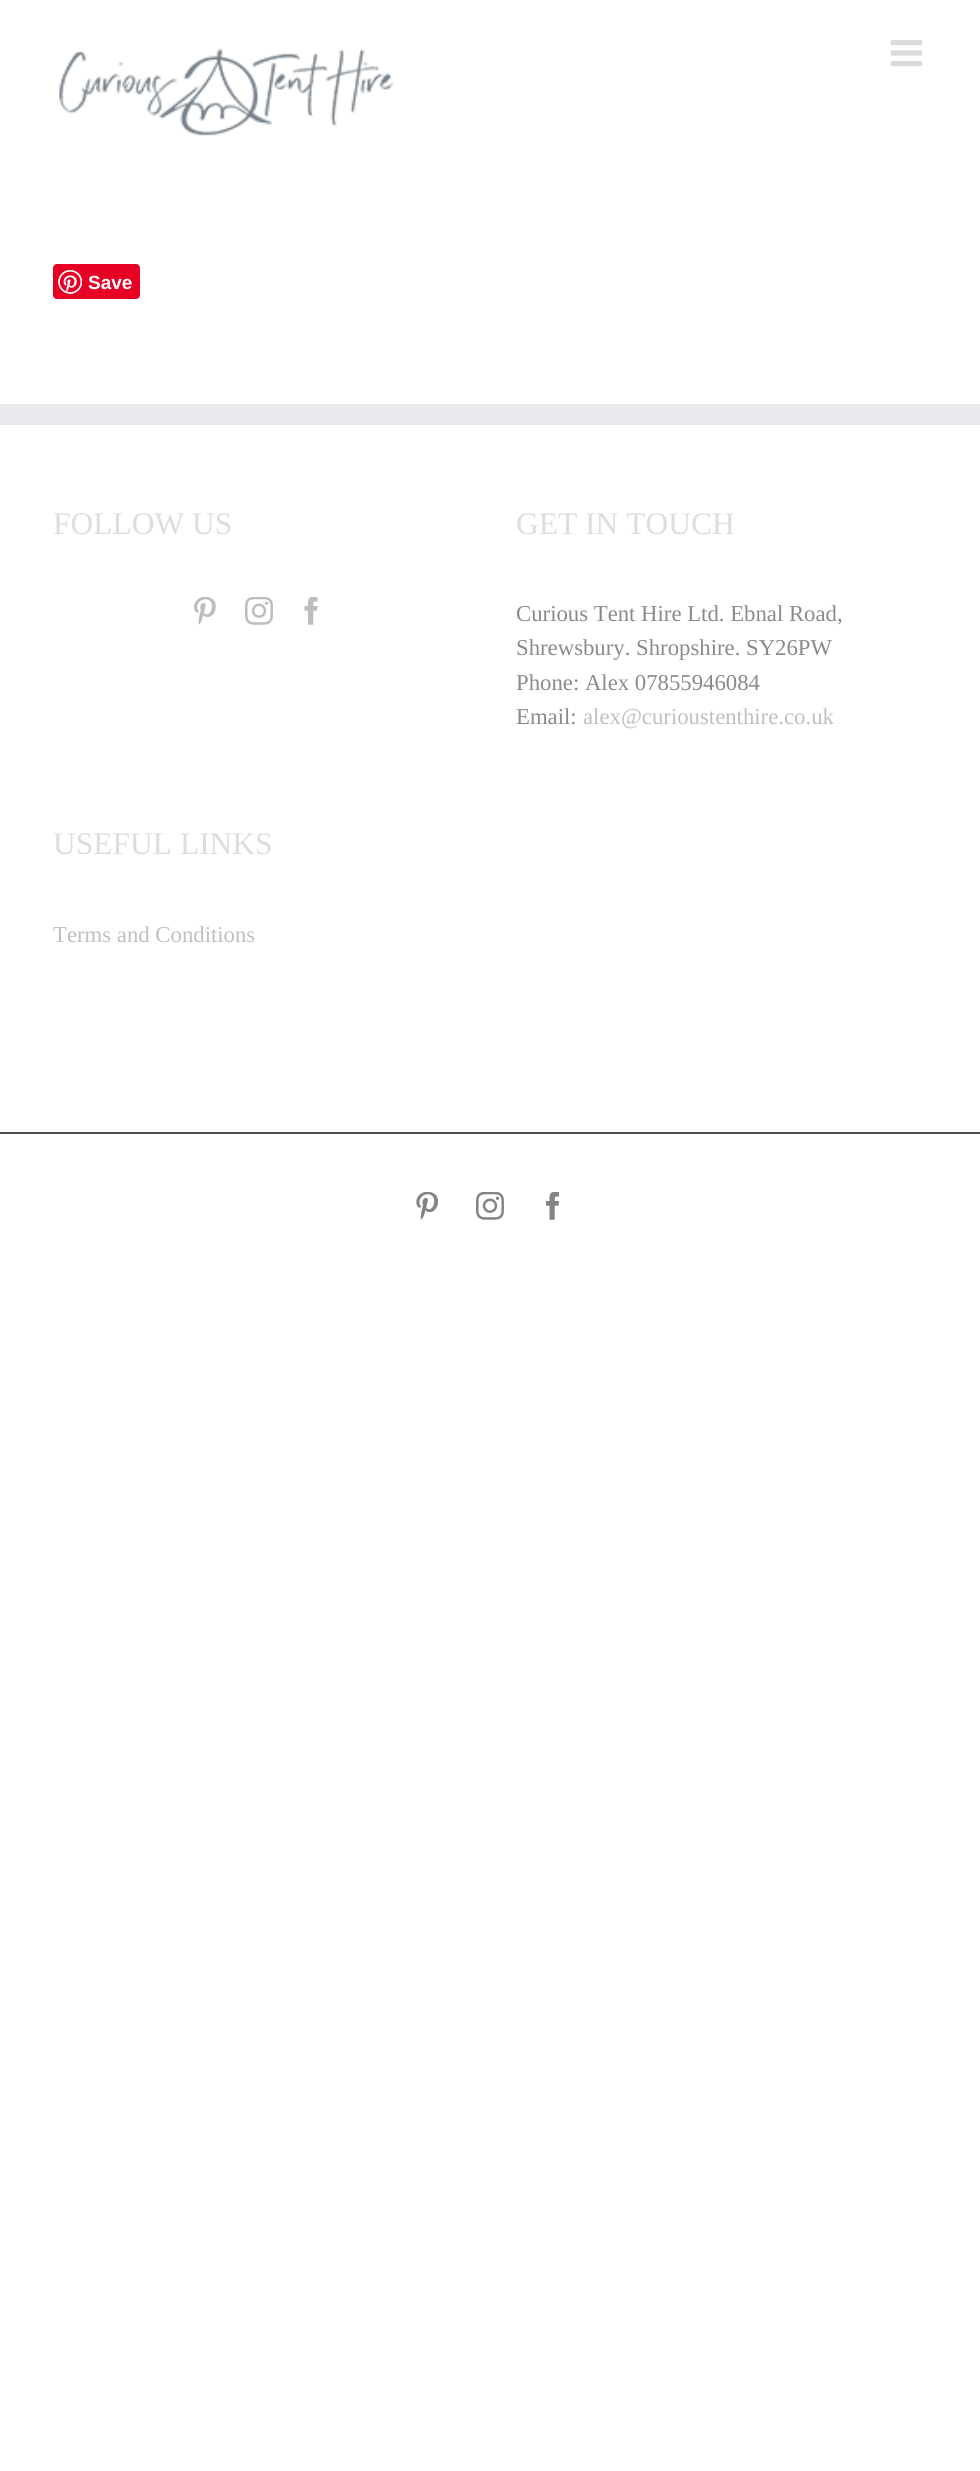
#include <cairo/cairo.h>
#include <math.h>
#include <stddef.h>

typedef struct { double x, y; const char *s; } line_t;
static cairo_t *cr;

static void rgb(unsigned color)
{
	cairo_set_source_rgb(cr, (color >> 16) / 255.0, (color >> 8 & 255) / 255.0, (color & 255) / 255.0);
}

static void rrect(double x, double y, double w, double h, double r)
{
	cairo_new_sub_path(cr);
	cairo_arc(cr, x + w - r, y + h - r, r, 0, M_PI / 2);
	cairo_arc(cr, x + r, y + h - r, r, M_PI / 2, M_PI);
	cairo_arc(cr, x + r, y + r, r, M_PI, 1.5 * M_PI);
	cairo_arc(cr, x + w - r, y + r, r, 1.5 * M_PI, 2 * M_PI);
	cairo_close_path(cr);
}

static void image(const char *path, double x, double y, double w, double h)
{
	cairo_surface_t *image = cairo_image_surface_create_from_png(path);
	cairo_save(cr);
	cairo_set_source_surface(cr, image, x, y);
	cairo_rectangle(cr, x, y, w, h);
	cairo_fill(cr);
	cairo_restore(cr);
	cairo_surface_destroy(image);
}

int main(void) {
	cairo_surface_t *surface = cairo_image_surface_create(CAIRO_FORMAT_RGB24, 980, 2471);
	cr = cairo_create(surface);
	cairo_font_options_t *options = cairo_font_options_create();
	cairo_font_options_set_hint_metrics(options, CAIRO_HINT_METRICS_OFF);
	cairo_font_options_set_hint_style(options, CAIRO_HINT_STYLE_NONE);
	cairo_set_font_options(cr, options);
	cairo_set_miter_limit(cr, 4);
	rgb(0xffffff);
	cairo_paint(cr);
	image("img/1.png", 59, 48, 335, 88);
	image("img/2.png", 890, 40, 33, 27);
	rgb(0xe60023);
	rrect(53, 264, 87, 35, 4);
	cairo_fill(cr);
	image("img/3.png", 58, 270, 24, 24);
	rgb(0xe9eaee);
	cairo_rectangle(cr, 0, 404, 980, 21);
	cairo_fill(cr);
	image("img/4.png", 194, 597, 22, 28);
	image("img/5.png", 245, 597, 28, 28);
	image("img/6.png", 304, 597, 14, 28);
	rgb(0x4b4c4d);
	cairo_rectangle(cr, 0, 1132, 980, 2);
	cairo_fill(cr);
	image("img/7.png", 416, 1192, 23, 28);
	image("img/8.png", 476, 1192, 28, 28);
	image("img/9.png", 546, 1192, 14, 28);
	cairo_select_font_face(cr, "Liberation Sans", CAIRO_FONT_SLANT_NORMAL, CAIRO_FONT_WEIGHT_BOLD);
	cairo_set_font_size(cr, 19);
	rgb(0xffffff);
	cairo_move_to(cr, 88, 289);
	cairo_show_text(cr, "Save");
	cairo_select_font_face(cr, "Liberation Serif", CAIRO_FONT_SLANT_NORMAL, CAIRO_FONT_WEIGHT_NORMAL);
	cairo_set_font_size(cr, 31.5);
	rgb(0xdddddd);
	cairo_move_to(cr, 53, 534);
	cairo_show_text(cr, "FOLLOW US");
	cairo_move_to(cr, 516, 534);
	cairo_show_text(cr, "GET IN TOUCH");
	cairo_set_font_size(cr, 22.75);
	rgb(0x8c8989);
	{
		static const line_t items[] = {
			{516, 621, "Curious Tent Hire Ltd. Ebnal Road,"},
			{516, 655, "Shrewsbury. Shropshire. SY26PW"},
			{516, 690, "Phone: Alex 07855946084"},
			{516, 724, "Email:"},
		};
		for (size_t i = 0; i < sizeof items / sizeof *items; i++) {
			cairo_move_to(cr, items[i].x, items[i].y);
			cairo_show_text(cr, items[i].s);
		}
	}
	rgb(0xbfbfbf);
	cairo_move_to(cr, 583, 724);
	cairo_show_text(cr, "alex@curioustenthire.co.uk");
	cairo_set_font_size(cr, 31.5);
	rgb(0xdddddd);
	cairo_move_to(cr, 53, 854);
	cairo_show_text(cr, "USEFUL LINKS");
	cairo_set_font_size(cr, 22.75);
	rgb(0xbfbfbf);
	cairo_move_to(cr, 53, 942);
	cairo_show_text(cr, "Terms and Conditions");
	cairo_surface_write_to_png(surface, "page.png");
	cairo_font_options_destroy(options);
	cairo_destroy(cr);
	cairo_surface_destroy(surface);
	return 0;
}
